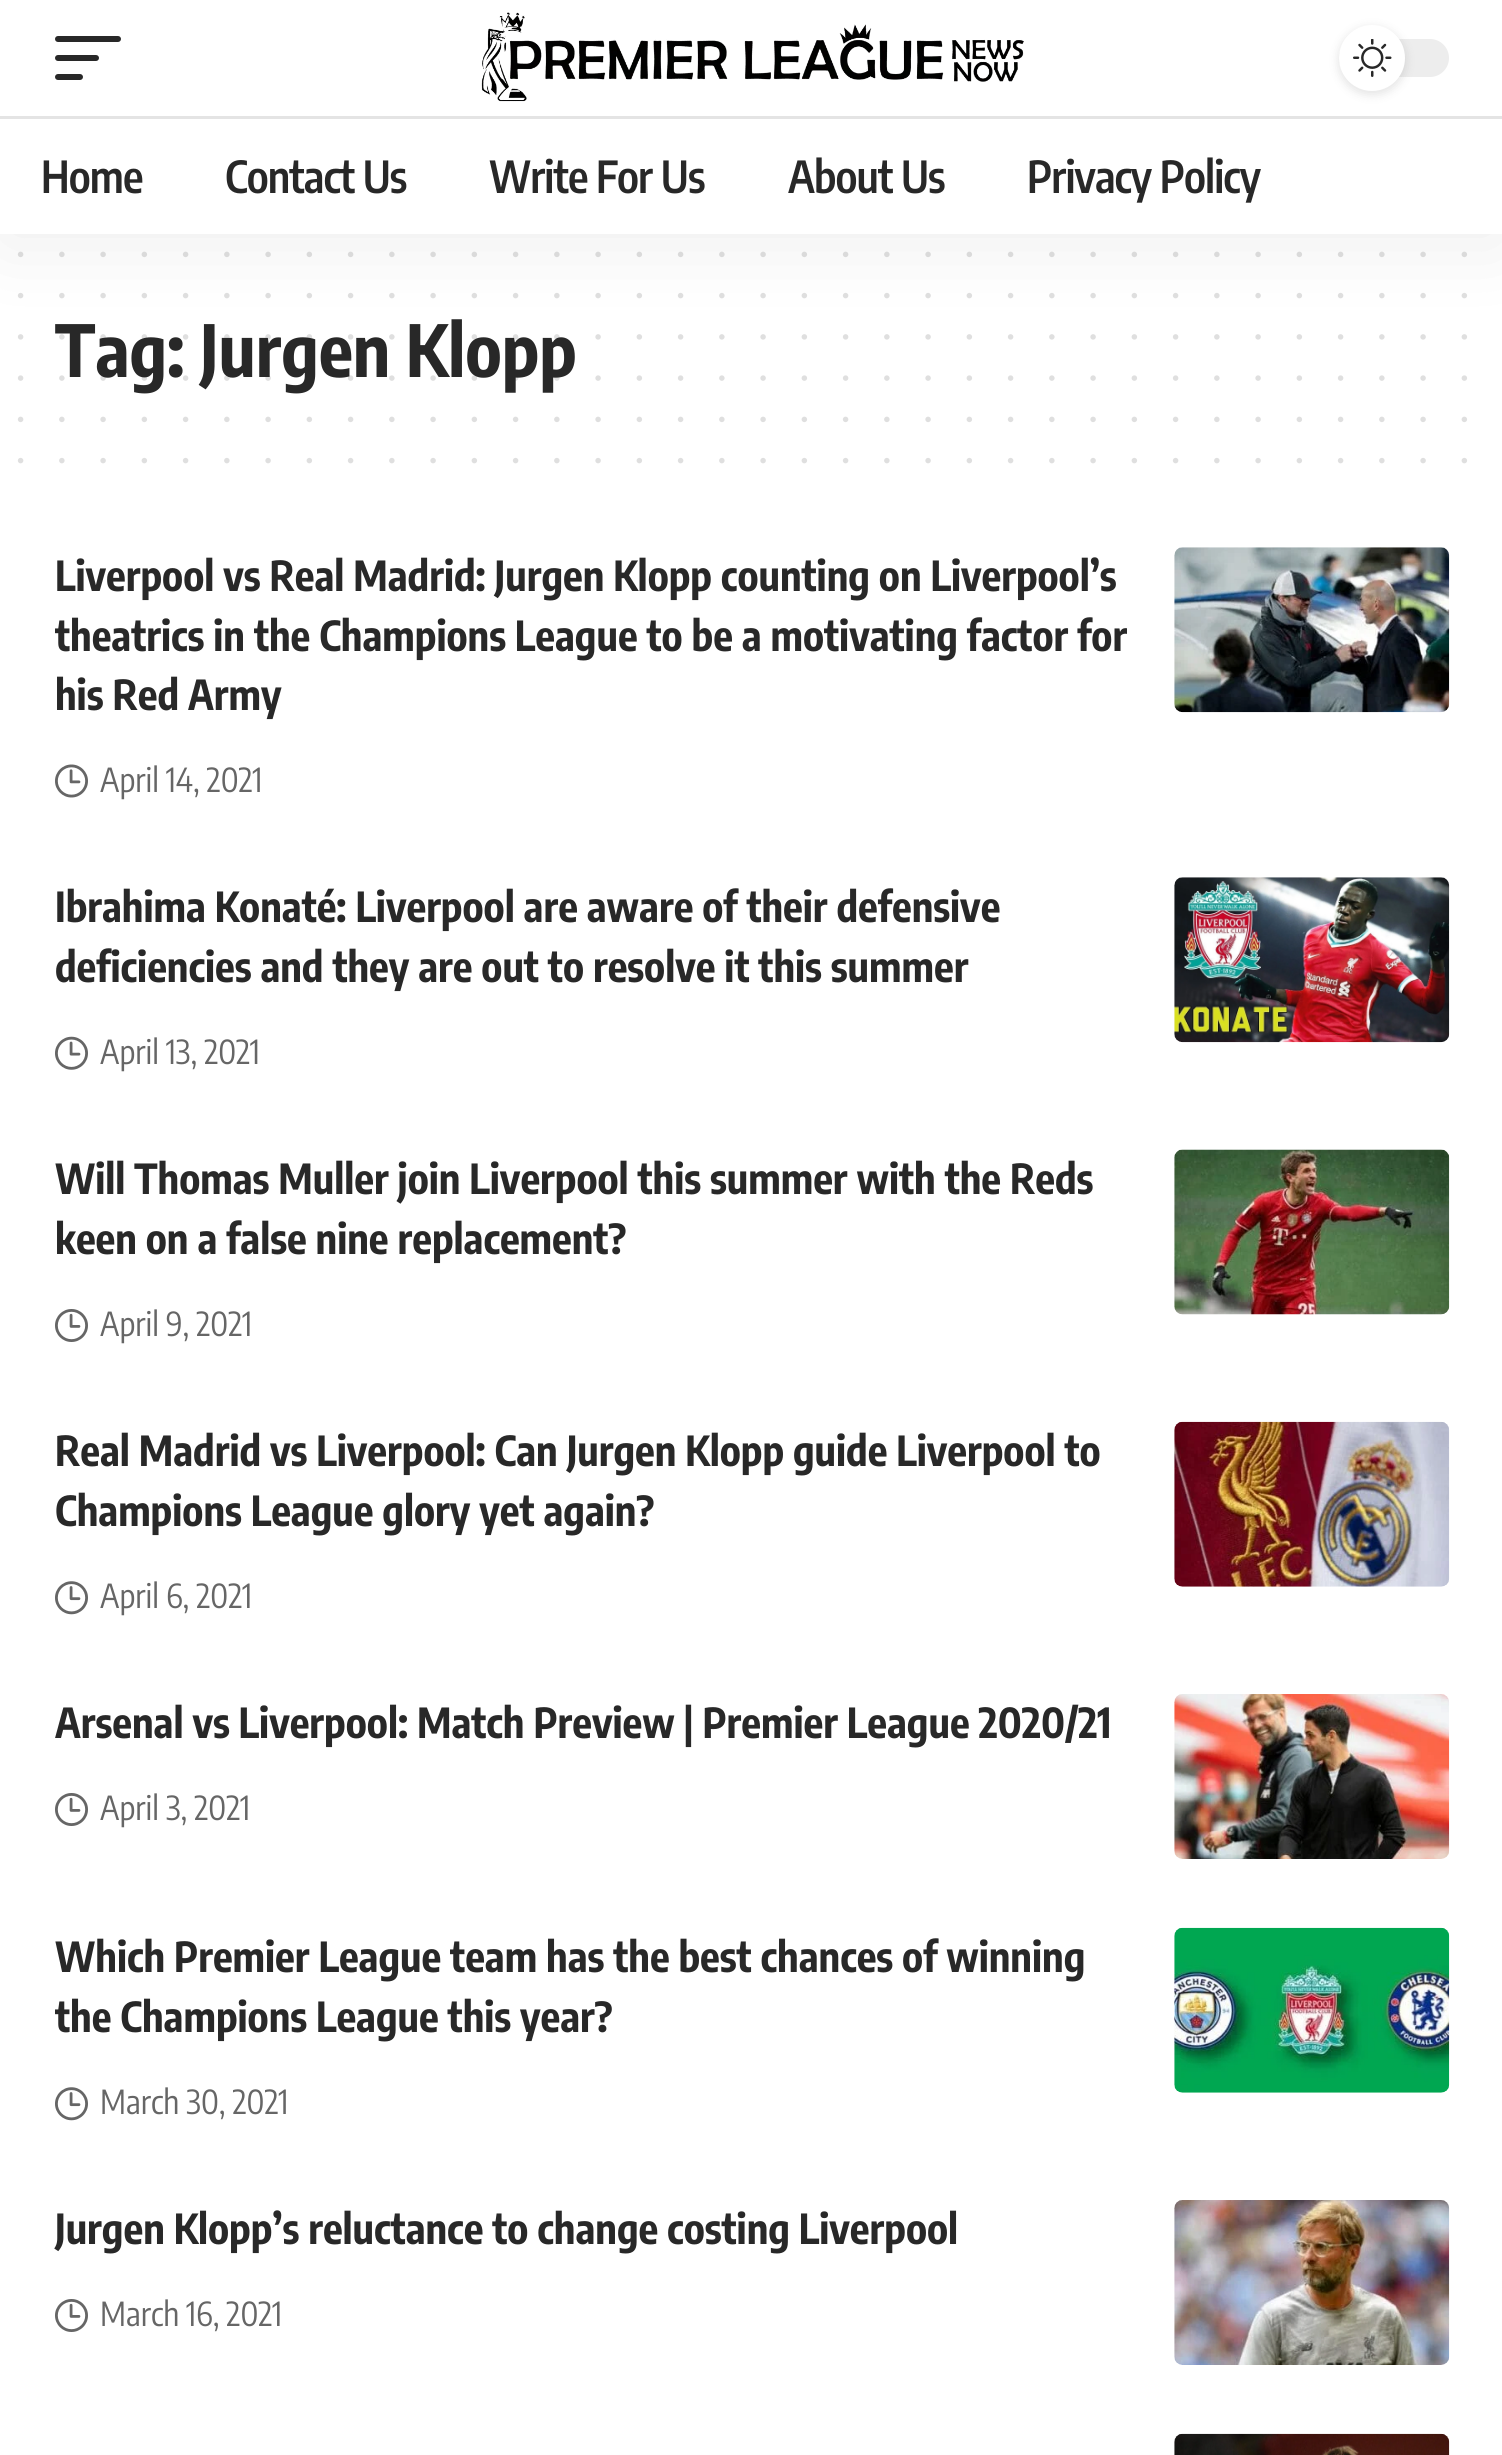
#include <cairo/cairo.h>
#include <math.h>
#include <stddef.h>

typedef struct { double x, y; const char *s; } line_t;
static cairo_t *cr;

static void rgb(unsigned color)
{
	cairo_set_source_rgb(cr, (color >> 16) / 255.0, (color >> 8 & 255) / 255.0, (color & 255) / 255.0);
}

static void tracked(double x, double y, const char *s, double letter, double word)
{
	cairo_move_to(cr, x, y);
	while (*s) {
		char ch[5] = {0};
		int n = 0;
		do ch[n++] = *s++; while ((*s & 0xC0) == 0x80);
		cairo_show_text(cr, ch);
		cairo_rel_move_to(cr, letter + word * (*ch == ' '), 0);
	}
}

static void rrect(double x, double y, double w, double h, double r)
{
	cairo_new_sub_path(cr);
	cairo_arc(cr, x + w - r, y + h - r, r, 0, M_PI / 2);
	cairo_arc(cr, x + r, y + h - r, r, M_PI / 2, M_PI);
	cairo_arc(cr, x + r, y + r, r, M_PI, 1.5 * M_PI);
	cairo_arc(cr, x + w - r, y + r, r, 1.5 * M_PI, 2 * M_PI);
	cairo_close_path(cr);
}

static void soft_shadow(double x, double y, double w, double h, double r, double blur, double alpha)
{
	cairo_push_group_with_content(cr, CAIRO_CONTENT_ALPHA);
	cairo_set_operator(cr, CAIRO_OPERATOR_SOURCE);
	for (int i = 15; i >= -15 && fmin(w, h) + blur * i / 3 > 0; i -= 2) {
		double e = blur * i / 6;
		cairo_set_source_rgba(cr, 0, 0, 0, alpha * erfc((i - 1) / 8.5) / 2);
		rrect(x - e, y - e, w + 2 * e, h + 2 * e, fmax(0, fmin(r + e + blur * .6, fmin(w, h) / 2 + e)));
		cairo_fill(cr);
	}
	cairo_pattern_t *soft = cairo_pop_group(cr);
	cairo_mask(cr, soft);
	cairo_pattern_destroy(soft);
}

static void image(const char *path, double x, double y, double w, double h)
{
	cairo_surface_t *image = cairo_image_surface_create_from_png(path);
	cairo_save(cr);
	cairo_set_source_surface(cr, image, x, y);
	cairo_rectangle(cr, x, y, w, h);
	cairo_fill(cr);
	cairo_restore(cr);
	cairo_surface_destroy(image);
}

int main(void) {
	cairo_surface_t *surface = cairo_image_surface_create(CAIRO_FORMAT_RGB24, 1502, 2455);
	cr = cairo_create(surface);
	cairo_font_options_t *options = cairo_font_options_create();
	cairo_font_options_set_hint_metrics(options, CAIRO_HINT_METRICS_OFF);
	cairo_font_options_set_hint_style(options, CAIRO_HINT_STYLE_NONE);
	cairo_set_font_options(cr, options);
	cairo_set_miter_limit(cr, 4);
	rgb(0xffffff);
	cairo_paint(cr);
	cairo_new_path(cr);
	cairo_move_to(cr, 20.6, 254.4);
	cairo_line_to(cr, 1464.9, 254.4);
	rgb(0xdfdfdf);
	cairo_set_line_width(cr, 5.5);
	cairo_set_line_cap(cr, CAIRO_LINE_CAP_ROUND);
	cairo_set_dash(cr, (double[]){0, 41.25}, 2, 0);
	cairo_stroke(cr);
	cairo_new_path(cr);
	cairo_move_to(cr, 20.6, 295.6);
	cairo_line_to(cr, 1464.9, 295.6);
	cairo_stroke(cr);
	cairo_new_path(cr);
	cairo_move_to(cr, 20.6, 419.4);
	cairo_line_to(cr, 1464.9, 419.4);
	cairo_stroke(cr);
	cairo_new_path(cr);
	cairo_move_to(cr, 20.6, 460.6);
	cairo_line_to(cr, 1464.9, 460.6);
	cairo_stroke(cr);
	image("img/3.png", 55, 764, 33, 34);
	image("img/4.png", 1174, 547, 276, 166);
	image("img/5.png", 55, 1036, 33, 34);
	image("img/6.png", 1174, 877, 276, 166);
	image("img/7.png", 55, 1309, 33, 33);
	image("img/8.png", 1174, 1149, 276, 166);
	image("img/9.png", 55, 1581, 33, 34);
	image("img/10.png", 1174, 1421, 276, 166);
	image("img/7.png", 55, 1793, 33, 33);
	image("img/11.png", 1174, 1694, 276, 165);
	image("img/9.png", 55, 2087, 33, 34);
	image("img/12.png", 1174, 1927, 276, 166);
	image("img/7.png", 55, 2299, 33, 33);
	image("img/13.png", 1174, 2200, 276, 165);
	image("img/14.png", 1174, 2433, 276, 22);
	cairo_select_font_face(cr, "Encode Sans Condensed", CAIRO_FONT_SLANT_NORMAL, CAIRO_FONT_WEIGHT_BOLD);
	cairo_set_font_size(cr, 71.5);
	rgb(0x282828);
	cairo_move_to(cr, 55, 377);
	cairo_show_text(cr, "Tag: Jurgen Klopp");
	cairo_new_path(cr);
	cairo_move_to(cr, 20.6, 336.9);
	cairo_line_to(cr, 1464.9, 336.9);
	cairo_set_source_rgba(cr, 0.157, 0.157, 0.157, 0.15);
	cairo_stroke(cr);
	rgb(0x000000);
	soft_shadow(0, 11, 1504, 234, 0, 41, 0.07);
	rgb(0xffffff);
	cairo_rectangle(cr, 0, 0, 1502, 234);
	cairo_fill(cr);
	cairo_select_font_face(cr, "Encode Sans Condensed SemiBold", CAIRO_FONT_SLANT_NORMAL, CAIRO_FONT_WEIGHT_NORMAL);
	cairo_set_font_size(cr, 44);
	rgb(0x282828);
	{
		static const line_t items[] = {
			{1027, 193, "Privacy Policy"},
			{788, 193, "About Us"},
			{489, 193, "Write For Us"},
			{225, 193, "Contact Us"},
			{41, 193, "Home"},
		};
		for (size_t i = 0; i < sizeof items / sizeof *items; i++) {
			tracked(items[i].x, items[i].y, items[i].s, -0.9, 0);
		}
	}
	rgb(0xe4e4e4);
	cairo_rectangle(cr, 0, 116, 1502, 3);
	cairo_fill(cr);
	rgb(0xededed);
	rrect(1339, 39, 110, 38, 19);
	cairo_fill(cr);
	rgb(0x000000);
	soft_shadow(1339, 28, 66, 66, 33, 5.5, 0.12);
	rgb(0xffffff);
	cairo_arc(cr, 1372, 58, 33, 0, 2 * M_PI);
	cairo_fill(cr);
	image("img/2.png", 1353, 39, 39, 38);
	rgb(0x282828);
	rrect(55, 74, 28, 6, 3);
	cairo_fill(cr);
	rrect(55, 55, 44, 6, 3);
	cairo_fill(cr);
	rrect(55, 36, 66, 6, 3);
	cairo_fill(cr);
	image("img/1.png", 481, 12, 543, 90);
	cairo_new_path(cr);
	cairo_move_to(cr, 20.6, 378.1);
	cairo_line_to(cr, 1464.9, 378.1);
	cairo_set_source_rgba(cr, 0.157, 0.157, 0.157, 0.15);
	cairo_stroke(cr);
	cairo_select_font_face(cr, "Encode Sans Condensed", CAIRO_FONT_SLANT_NORMAL, CAIRO_FONT_WEIGHT_BOLD);
	cairo_set_font_size(cr, 41.25);
	rgb(0x282828);
	{
		static const line_t items[] = {
			{55, 591, "Liverpool vs Real Madrid: Jurgen Klopp counting on Liverpool’s"},
			{55, 651, "theatrics in the Champions League to be a motivating factor for"},
			{55, 710, "his Red Army"},
		};
		for (size_t i = 0; i < sizeof items / sizeof *items; i++) {
			cairo_move_to(cr, items[i].x, items[i].y);
			cairo_show_text(cr, items[i].s);
		}
	}
	cairo_select_font_face(cr, "Encode Sans Condensed", CAIRO_FONT_SLANT_NORMAL, CAIRO_FONT_WEIGHT_NORMAL);
	cairo_set_font_size(cr, 33);
	rgb(0x666666);
	cairo_move_to(cr, 100, 792);
	cairo_show_text(cr, "April 14, 2021");
	cairo_select_font_face(cr, "Encode Sans Condensed", CAIRO_FONT_SLANT_NORMAL, CAIRO_FONT_WEIGHT_BOLD);
	cairo_set_font_size(cr, 41.25);
	rgb(0x282828);
	cairo_move_to(cr, 55, 922);
	cairo_show_text(cr, "Ibrahima Konaté: Liverpool are aware of their defensive");
	cairo_move_to(cr, 55, 982);
	cairo_show_text(cr, "deficiencies and they are out to resolve it this summer");
	cairo_select_font_face(cr, "Encode Sans Condensed", CAIRO_FONT_SLANT_NORMAL, CAIRO_FONT_WEIGHT_NORMAL);
	cairo_set_font_size(cr, 33);
	rgb(0x666666);
	cairo_move_to(cr, 100, 1064);
	cairo_show_text(cr, "April 13, 2021");
	cairo_select_font_face(cr, "Encode Sans Condensed", CAIRO_FONT_SLANT_NORMAL, CAIRO_FONT_WEIGHT_BOLD);
	cairo_set_font_size(cr, 41.25);
	rgb(0x282828);
	cairo_move_to(cr, 55, 1194);
	cairo_show_text(cr, "Will Thomas Muller join Liverpool this summer with the Reds");
	cairo_move_to(cr, 55, 1254);
	cairo_show_text(cr, "keen on a false nine replacement?");
	cairo_select_font_face(cr, "Encode Sans Condensed", CAIRO_FONT_SLANT_NORMAL, CAIRO_FONT_WEIGHT_NORMAL);
	cairo_set_font_size(cr, 33);
	rgb(0x666666);
	cairo_move_to(cr, 100, 1336);
	cairo_show_text(cr, "April 9, 2021");
	cairo_select_font_face(cr, "Encode Sans Condensed", CAIRO_FONT_SLANT_NORMAL, CAIRO_FONT_WEIGHT_BOLD);
	cairo_set_font_size(cr, 41.25);
	rgb(0x282828);
	cairo_move_to(cr, 55, 1466);
	cairo_show_text(cr, "Real Madrid vs Liverpool: Can Jurgen Klopp guide Liverpool to");
	cairo_move_to(cr, 55, 1526);
	cairo_show_text(cr, "Champions League glory yet again?");
	cairo_select_font_face(cr, "Encode Sans Condensed", CAIRO_FONT_SLANT_NORMAL, CAIRO_FONT_WEIGHT_NORMAL);
	cairo_set_font_size(cr, 33);
	rgb(0x666666);
	cairo_move_to(cr, 100, 1608);
	cairo_show_text(cr, "April 6, 2021");
	cairo_select_font_face(cr, "Encode Sans Condensed", CAIRO_FONT_SLANT_NORMAL, CAIRO_FONT_WEIGHT_BOLD);
	cairo_set_font_size(cr, 41.25);
	rgb(0x282828);
	cairo_move_to(cr, 55, 1738);
	cairo_show_text(cr, "Arsenal vs Liverpool: Match Preview | Premier League 2020/21");
	cairo_select_font_face(cr, "Encode Sans Condensed", CAIRO_FONT_SLANT_NORMAL, CAIRO_FONT_WEIGHT_NORMAL);
	cairo_set_font_size(cr, 33);
	rgb(0x666666);
	cairo_move_to(cr, 100, 1820);
	cairo_show_text(cr, "April 3, 2021");
	cairo_select_font_face(cr, "Encode Sans Condensed", CAIRO_FONT_SLANT_NORMAL, CAIRO_FONT_WEIGHT_BOLD);
	cairo_set_font_size(cr, 41.25);
	rgb(0x282828);
	cairo_move_to(cr, 55, 1972);
	cairo_show_text(cr, "Which Premier League team has the best chances of winning");
	cairo_move_to(cr, 55, 2032);
	cairo_show_text(cr, "the Champions League this year?");
	cairo_select_font_face(cr, "Encode Sans Condensed", CAIRO_FONT_SLANT_NORMAL, CAIRO_FONT_WEIGHT_NORMAL);
	cairo_set_font_size(cr, 33);
	rgb(0x666666);
	cairo_move_to(cr, 100, 2114);
	cairo_show_text(cr, "March 30, 2021");
	cairo_select_font_face(cr, "Encode Sans Condensed", CAIRO_FONT_SLANT_NORMAL, CAIRO_FONT_WEIGHT_BOLD);
	cairo_set_font_size(cr, 41.25);
	rgb(0x282828);
	cairo_move_to(cr, 55, 2244);
	cairo_show_text(cr, "Jurgen Klopp’s reluctance to change costing Liverpool");
	cairo_select_font_face(cr, "Encode Sans Condensed", CAIRO_FONT_SLANT_NORMAL, CAIRO_FONT_WEIGHT_NORMAL);
	cairo_set_font_size(cr, 33);
	rgb(0x666666);
	cairo_move_to(cr, 100, 2326);
	cairo_show_text(cr, "March 16, 2021");
	cairo_surface_write_to_png(surface, "page.png");
	cairo_font_options_destroy(options);
	cairo_destroy(cr);
	cairo_surface_destroy(surface);
	return 0;
}
